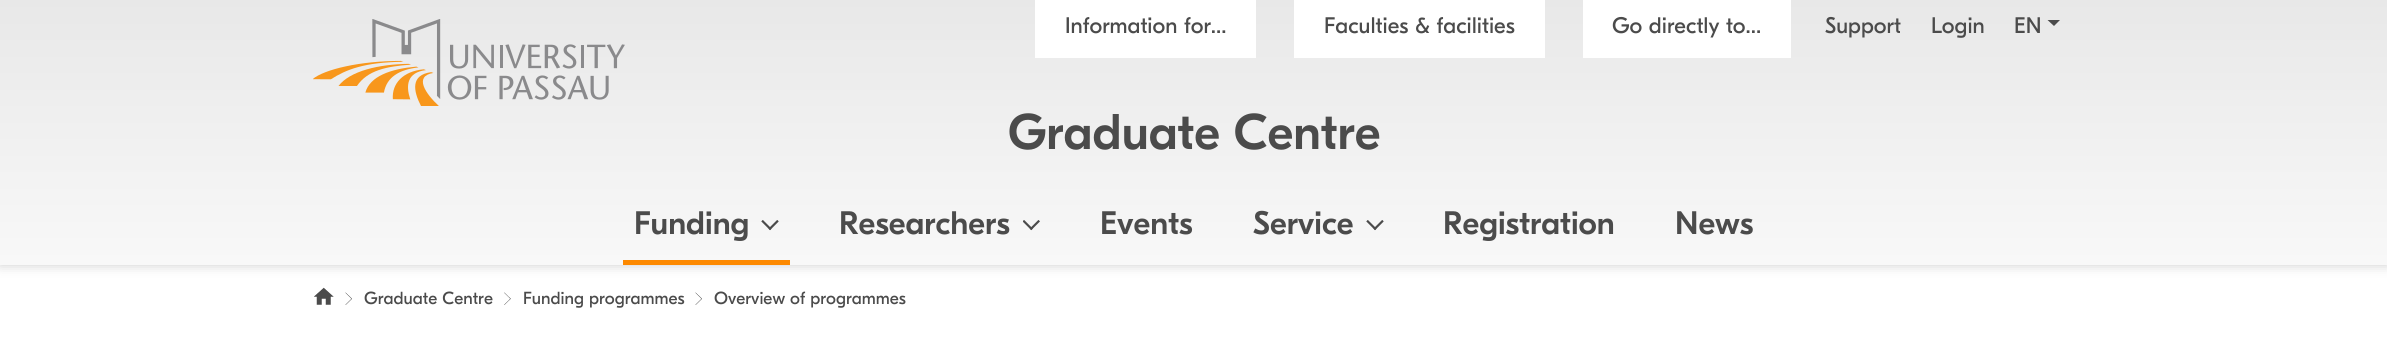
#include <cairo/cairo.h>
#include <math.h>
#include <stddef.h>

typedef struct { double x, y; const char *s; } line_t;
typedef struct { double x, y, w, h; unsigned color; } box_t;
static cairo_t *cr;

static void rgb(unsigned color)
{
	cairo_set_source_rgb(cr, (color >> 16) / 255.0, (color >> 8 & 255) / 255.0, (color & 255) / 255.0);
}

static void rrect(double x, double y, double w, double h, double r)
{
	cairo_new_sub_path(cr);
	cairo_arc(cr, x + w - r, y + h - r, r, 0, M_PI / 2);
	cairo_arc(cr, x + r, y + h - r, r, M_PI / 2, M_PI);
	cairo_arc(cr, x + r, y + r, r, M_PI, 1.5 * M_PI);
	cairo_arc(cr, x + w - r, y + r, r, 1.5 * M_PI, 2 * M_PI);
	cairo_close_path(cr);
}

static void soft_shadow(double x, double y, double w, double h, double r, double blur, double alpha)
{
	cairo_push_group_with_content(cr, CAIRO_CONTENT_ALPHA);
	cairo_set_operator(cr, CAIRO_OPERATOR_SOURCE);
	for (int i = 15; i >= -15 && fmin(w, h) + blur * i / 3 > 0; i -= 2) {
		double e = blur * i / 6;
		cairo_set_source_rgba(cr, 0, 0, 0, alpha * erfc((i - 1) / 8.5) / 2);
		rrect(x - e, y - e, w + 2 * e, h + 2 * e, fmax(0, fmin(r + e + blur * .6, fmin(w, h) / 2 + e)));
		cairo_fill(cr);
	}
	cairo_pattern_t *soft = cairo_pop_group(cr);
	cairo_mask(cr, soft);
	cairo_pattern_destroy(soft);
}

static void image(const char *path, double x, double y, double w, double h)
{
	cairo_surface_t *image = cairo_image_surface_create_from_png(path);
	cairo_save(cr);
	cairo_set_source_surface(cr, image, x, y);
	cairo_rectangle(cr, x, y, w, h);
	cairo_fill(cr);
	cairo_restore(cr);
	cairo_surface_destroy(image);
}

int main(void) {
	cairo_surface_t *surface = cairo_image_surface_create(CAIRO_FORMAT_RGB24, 2387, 358);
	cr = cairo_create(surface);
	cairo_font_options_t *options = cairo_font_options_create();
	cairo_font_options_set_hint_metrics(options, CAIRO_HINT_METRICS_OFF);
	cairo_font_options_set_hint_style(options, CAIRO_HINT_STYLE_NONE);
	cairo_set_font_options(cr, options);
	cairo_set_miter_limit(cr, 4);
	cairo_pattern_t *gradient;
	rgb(0xffffff);
	cairo_paint(cr);
	rgb(0x000000);
	soft_shadow(0, 0, 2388, 265, 0, 6, 0.2);
	gradient = cairo_pattern_create_linear(1194, 0, 1194, 265);
	cairo_pattern_add_color_stop_rgba(gradient, 0, 0.91, 0.91, 0.91, 1);
	cairo_pattern_add_color_stop_rgba(gradient, 1, 0.973, 0.973, 0.973, 1);
	cairo_set_source(cr, gradient);
	cairo_pattern_destroy(gradient);
	cairo_rectangle(cr, 0, 0, 2387, 265);
	cairo_fill(cr);
	image("img/1.png", 313, 19, 312, 87);
	{
		static const box_t items[] = {
			{1035, 0, 221, 58, 0xffffff},
			{1294, 0, 251, 58, 0xffffff},
			{1583, 0, 208, 58, 0xffffff},
		};
		for (size_t i = 0; i < sizeof items / sizeof *items; i++) {
			rgb(items[i].color);
			cairo_rectangle(cr, items[i].x, items[i].y, items[i].w, items[i].h);
			cairo_fill(cr);
		}
	}
	rgb(0x4b4b4b);
	cairo_new_path(cr);
	cairo_move_to(cr, 2047.5, 20);
	cairo_line_to(cr, 2060, 20);
	cairo_line_to(cr, 2054, 26);
	cairo_close_path(cr);
	cairo_fill(cr);
	image("img/2.png", 761, 220, 18, 11);
	rgb(0xfd8900);
	cairo_rectangle(cr, 623, 260, 167, 5);
	cairo_fill(cr);
	image("img/3.png", 1023, 220, 17, 11);
	image("img/2.png", 1366, 220, 18, 11);
	image("img/4.png", 314, 287, 20, 18);
	image("img/5.png", 345, 292, 7, 13);
	image("img/6.png", 504, 292, 7, 13);
	image("img/5.png", 695, 292, 7, 13);
	cairo_select_font_face(cr, "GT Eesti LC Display", CAIRO_FONT_SLANT_NORMAL, CAIRO_FONT_WEIGHT_NORMAL);
	cairo_set_font_size(cr, 22.5);
	rgb(0x4b4b4b);
	{
		static const line_t items[] = {
			{1065, 33, "Information for..."},
			{1324, 33, "Faculties & facilities"},
			{1612, 33, "Go directly to..."},
			{1825, 33, "Support"},
			{1931, 33, "Login"},
			{2014, 33, "EN"},
		};
		for (size_t i = 0; i < sizeof items / sizeof *items; i++) {
			cairo_move_to(cr, items[i].x, items[i].y);
			cairo_show_text(cr, items[i].s);
		}
	}
	cairo_select_font_face(cr, "GT Eesti LC Display Medium", CAIRO_FONT_SLANT_NORMAL, CAIRO_FONT_WEIGHT_NORMAL);
	cairo_set_font_size(cr, 50);
	cairo_move_to(cr, 1008, 149);
	cairo_show_text(cr, "Graduate Centre");
	cairo_set_font_size(cr, 32.5);
	{
		static const line_t items[] = {
			{634, 234, "Funding"},
			{839, 234, "Researchers"},
			{1100, 234, "Events"},
			{1253, 234, "Service"},
			{1443, 234, "Registration"},
			{1675, 234, "News"},
		};
		for (size_t i = 0; i < sizeof items / sizeof *items; i++) {
			cairo_move_to(cr, items[i].x, items[i].y);
			cairo_show_text(cr, items[i].s);
		}
	}
	cairo_select_font_face(cr, "GT Eesti LC Display", CAIRO_FONT_SLANT_NORMAL, CAIRO_FONT_WEIGHT_NORMAL);
	cairo_set_font_size(cr, 17.5);
	{
		static const line_t items[] = {
			{364, 304, "Graduate Centre"},
			{523, 304, "Funding programmes"},
			{714, 304, "Overview of programmes"},
		};
		for (size_t i = 0; i < sizeof items / sizeof *items; i++) {
			cairo_move_to(cr, items[i].x, items[i].y);
			cairo_show_text(cr, items[i].s);
		}
	}
	cairo_surface_write_to_png(surface, "page.png");
	cairo_font_options_destroy(options);
	cairo_destroy(cr);
	cairo_surface_destroy(surface);
	return 0;
}
